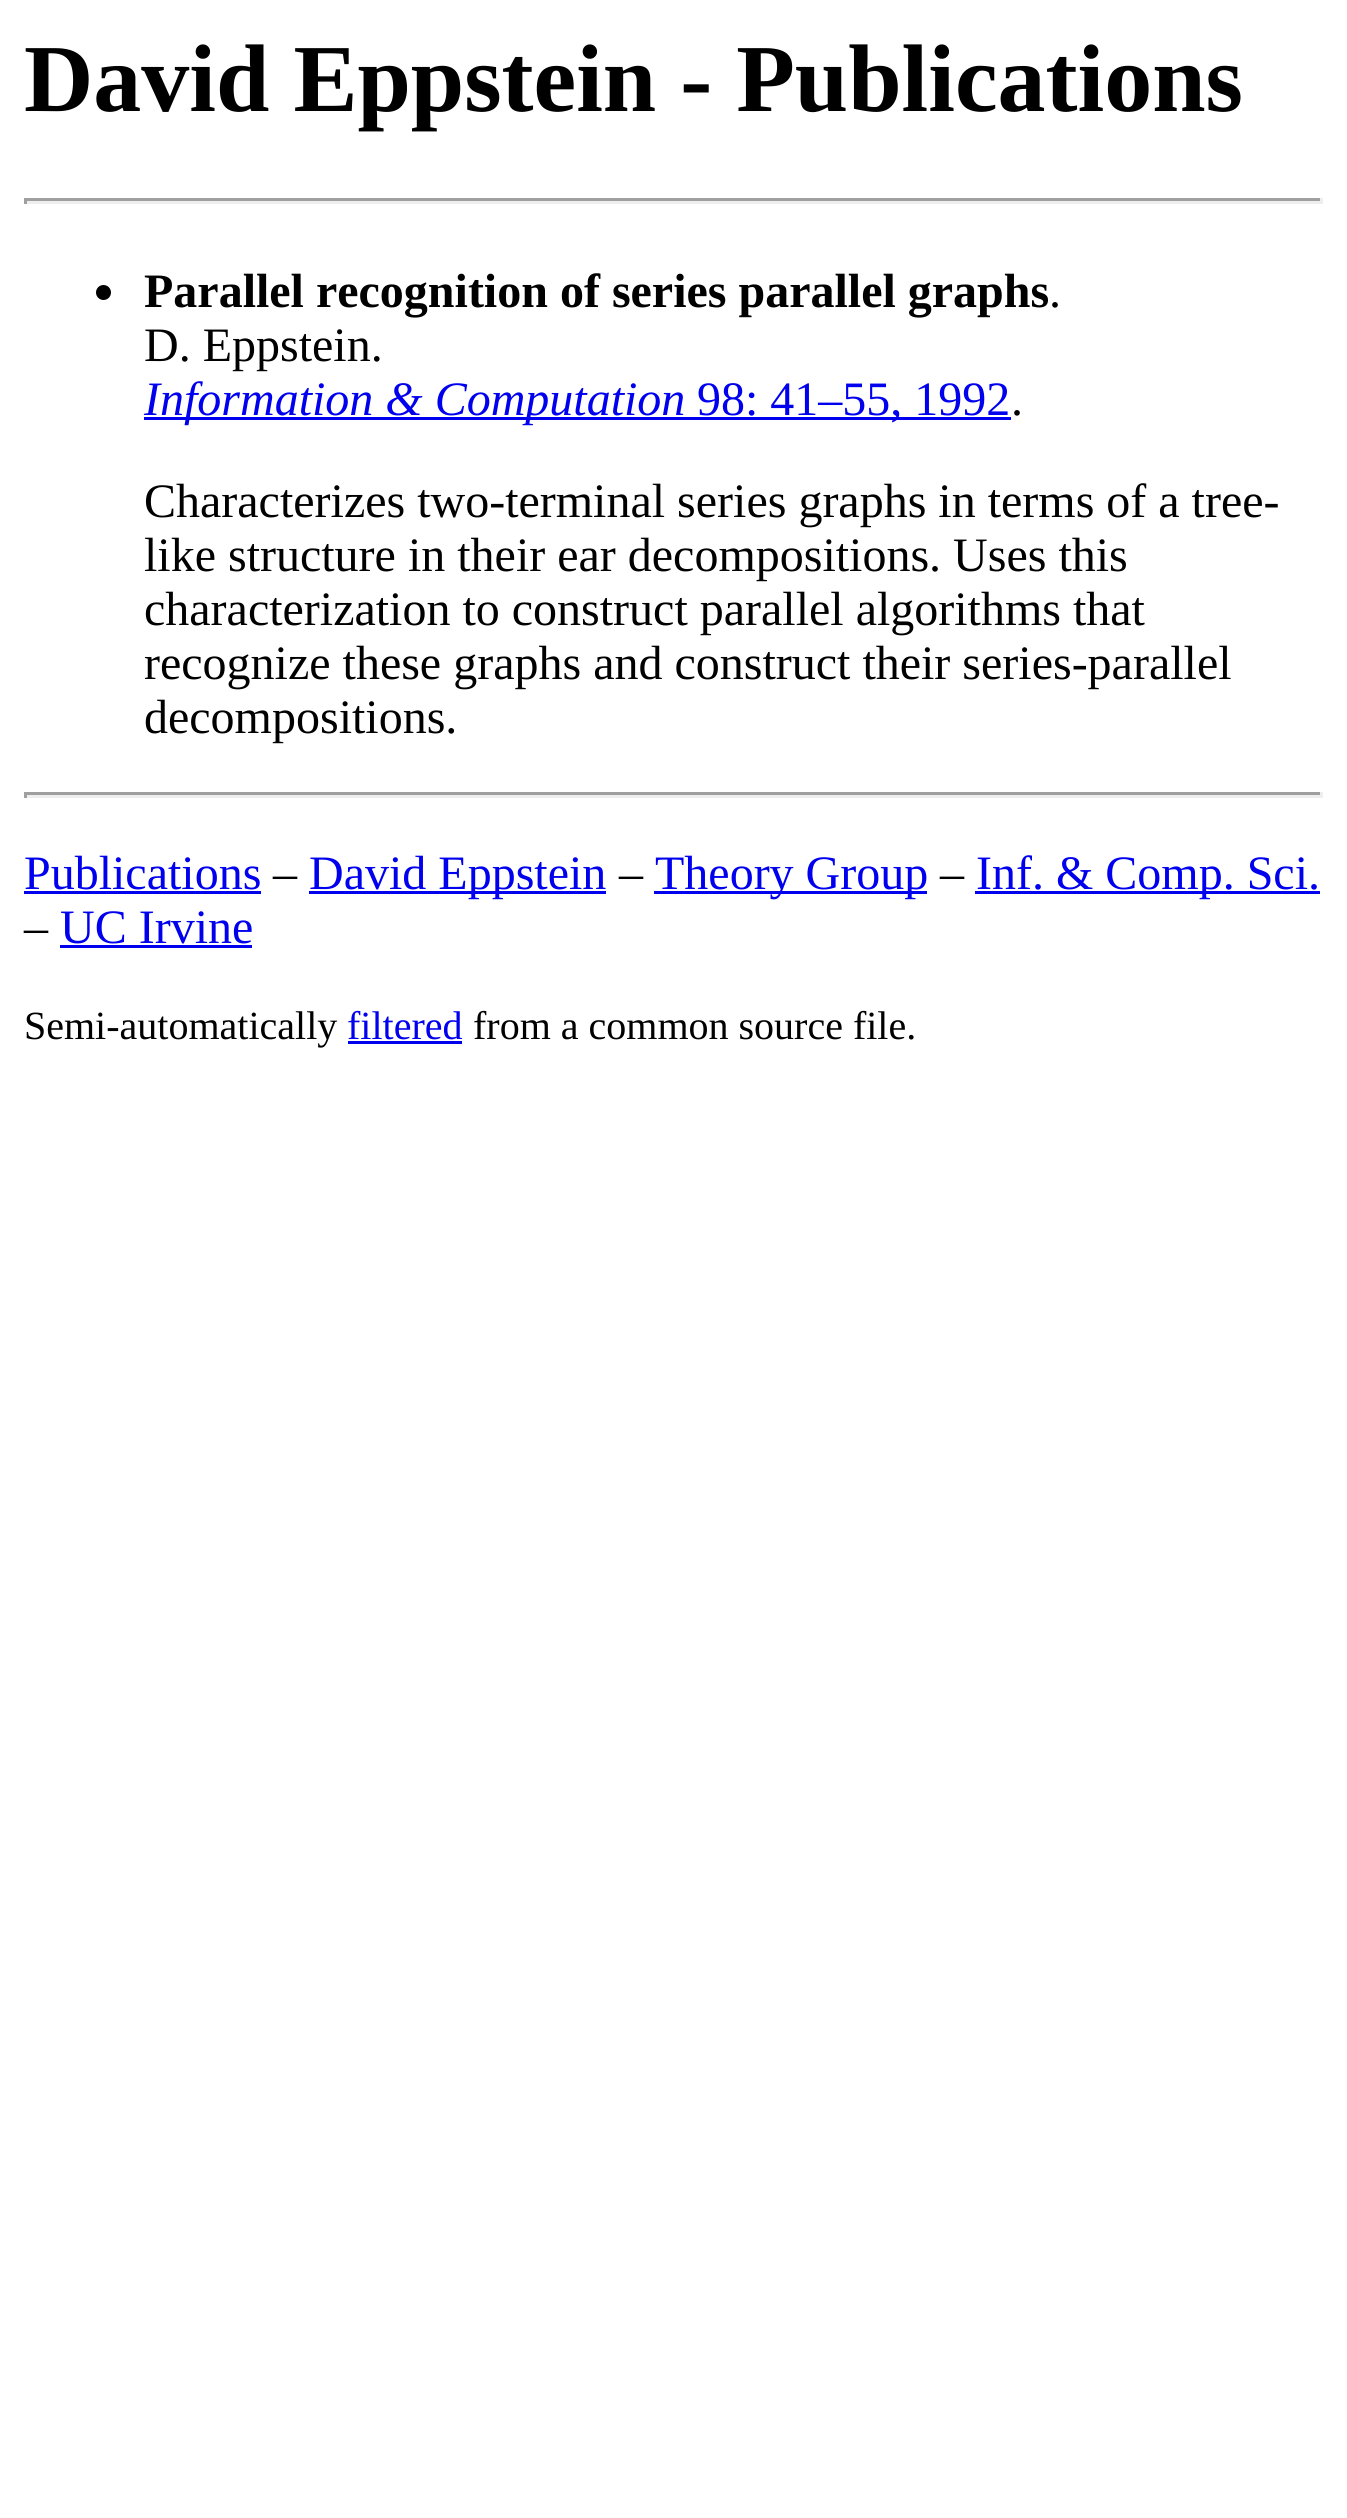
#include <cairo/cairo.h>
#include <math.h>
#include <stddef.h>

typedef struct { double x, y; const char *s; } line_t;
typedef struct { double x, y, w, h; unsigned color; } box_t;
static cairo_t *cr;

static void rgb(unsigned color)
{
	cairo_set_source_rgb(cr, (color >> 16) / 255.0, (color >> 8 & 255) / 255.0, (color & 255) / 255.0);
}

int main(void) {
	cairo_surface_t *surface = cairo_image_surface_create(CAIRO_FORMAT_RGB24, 1347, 2518);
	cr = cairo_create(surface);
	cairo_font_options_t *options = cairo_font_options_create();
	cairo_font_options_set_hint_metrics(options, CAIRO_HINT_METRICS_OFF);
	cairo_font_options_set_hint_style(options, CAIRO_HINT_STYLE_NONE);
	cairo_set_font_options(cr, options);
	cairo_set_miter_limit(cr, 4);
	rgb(0xffffff);
	cairo_paint(cr);
	{
		static const box_t items[] = {
			{24, 198, 1299, 3, 0x9f9f9f},
			{1320, 198, 3, 6, 0xeeeeee},
			{24, 201, 1299, 3, 0xeeeeee},
			{24, 198, 3, 6, 0x9f9f9f},
		};
		for (size_t i = 0; i < sizeof items / sizeof *items; i++) {
			rgb(items[i].color);
			cairo_rectangle(cr, items[i].x, items[i].y, items[i].w, items[i].h);
			cairo_fill(cr);
		}
	}
	rgb(0x000000);
	cairo_arc(cr, 103.5, 292.5, 7.5, 0, 2 * M_PI);
	cairo_fill(cr);
	{
		static const box_t items[] = {
			{144, 417, 867, 3, 0x0000ee},
			{24, 792, 1299, 3, 0x9f9f9f},
			{1320, 792, 3, 6, 0xeeeeee},
			{24, 795, 1299, 3, 0xeeeeee},
			{24, 792, 3, 6, 0x9f9f9f},
			{24, 891, 237, 3, 0x0000ee},
			{309, 891, 297, 3, 0x0000ee},
			{654, 891, 273, 3, 0x0000ee},
			{975, 891, 345, 3, 0x0000ee},
			{60, 945, 192, 3, 0x0000ee},
			{348, 1041, 114, 3, 0x0000ee},
		};
		for (size_t i = 0; i < sizeof items / sizeof *items; i++) {
			rgb(items[i].color);
			cairo_rectangle(cr, items[i].x, items[i].y, items[i].w, items[i].h);
			cairo_fill(cr);
		}
	}
	cairo_select_font_face(cr, "Liberation Serif", CAIRO_FONT_SLANT_NORMAL, CAIRO_FONT_WEIGHT_BOLD);
	cairo_set_font_size(cr, 96);
	rgb(0x000000);
	cairo_move_to(cr, 24, 111);
	cairo_show_text(cr, "David Eppstein - Publications");
	cairo_set_font_size(cr, 48);
	cairo_move_to(cr, 144, 307);
	cairo_show_text(cr, "Parallel recognition of series parallel graphs");
	cairo_select_font_face(cr, "Liberation Serif", CAIRO_FONT_SLANT_NORMAL, CAIRO_FONT_WEIGHT_NORMAL);
	cairo_move_to(cr, 1049, 307);
	cairo_show_text(cr, ".");
	cairo_move_to(cr, 144, 361);
	cairo_show_text(cr, "D. Eppstein.");
	cairo_select_font_face(cr, "Liberation Serif", CAIRO_FONT_SLANT_ITALIC, CAIRO_FONT_WEIGHT_NORMAL);
	rgb(0x0000ee);
	cairo_move_to(cr, 144, 415);
	cairo_show_text(cr, "Information & Computation");
	cairo_select_font_face(cr, "Liberation Serif", CAIRO_FONT_SLANT_NORMAL, CAIRO_FONT_WEIGHT_NORMAL);
	cairo_move_to(cr, 697, 415);
	cairo_show_text(cr, "98: 41–55, 1992");
	rgb(0x000000);
	{
		static const line_t items[] = {
			{1011, 415, "."},
			{144, 517, "Characterizes two-terminal series graphs in terms of a tree-"},
			{144, 571, "like structure in their ear decompositions. Uses this"},
			{144, 625, "characterization to construct parallel algorithms that"},
			{144, 679, "recognize these graphs and construct their series-parallel"},
			{144, 733, "decompositions."},
		};
		for (size_t i = 0; i < sizeof items / sizeof *items; i++) {
			cairo_move_to(cr, items[i].x, items[i].y);
			cairo_show_text(cr, items[i].s);
		}
	}
	rgb(0x0000ee);
	cairo_move_to(cr, 24, 889);
	cairo_show_text(cr, "Publications");
	rgb(0x000000);
	cairo_move_to(cr, 273, 889);
	cairo_show_text(cr, "–");
	rgb(0x0000ee);
	cairo_move_to(cr, 309, 889);
	cairo_show_text(cr, "David Eppstein");
	rgb(0x000000);
	cairo_move_to(cr, 619, 889);
	cairo_show_text(cr, "–");
	rgb(0x0000ee);
	cairo_move_to(cr, 655, 889);
	cairo_show_text(cr, "Theory Group");
	rgb(0x000000);
	cairo_move_to(cr, 940, 889);
	cairo_show_text(cr, "–");
	rgb(0x0000ee);
	cairo_move_to(cr, 976, 889);
	cairo_show_text(cr, "Inf. & Comp. Sci.");
	rgb(0x000000);
	cairo_move_to(cr, 24, 943);
	cairo_show_text(cr, "–");
	rgb(0x0000ee);
	cairo_move_to(cr, 60, 943);
	cairo_show_text(cr, "UC Irvine");
	cairo_set_font_size(cr, 40);
	rgb(0x000000);
	cairo_move_to(cr, 24, 1039);
	cairo_show_text(cr, "Semi-automatically");
	rgb(0x0000ee);
	cairo_move_to(cr, 347, 1039);
	cairo_show_text(cr, "filtered");
	rgb(0x000000);
	cairo_move_to(cr, 473, 1039);
	cairo_show_text(cr, "from a common source file.");
	cairo_surface_write_to_png(surface, "page.png");
	cairo_font_options_destroy(options);
	cairo_destroy(cr);
	cairo_surface_destroy(surface);
	return 0;
}
